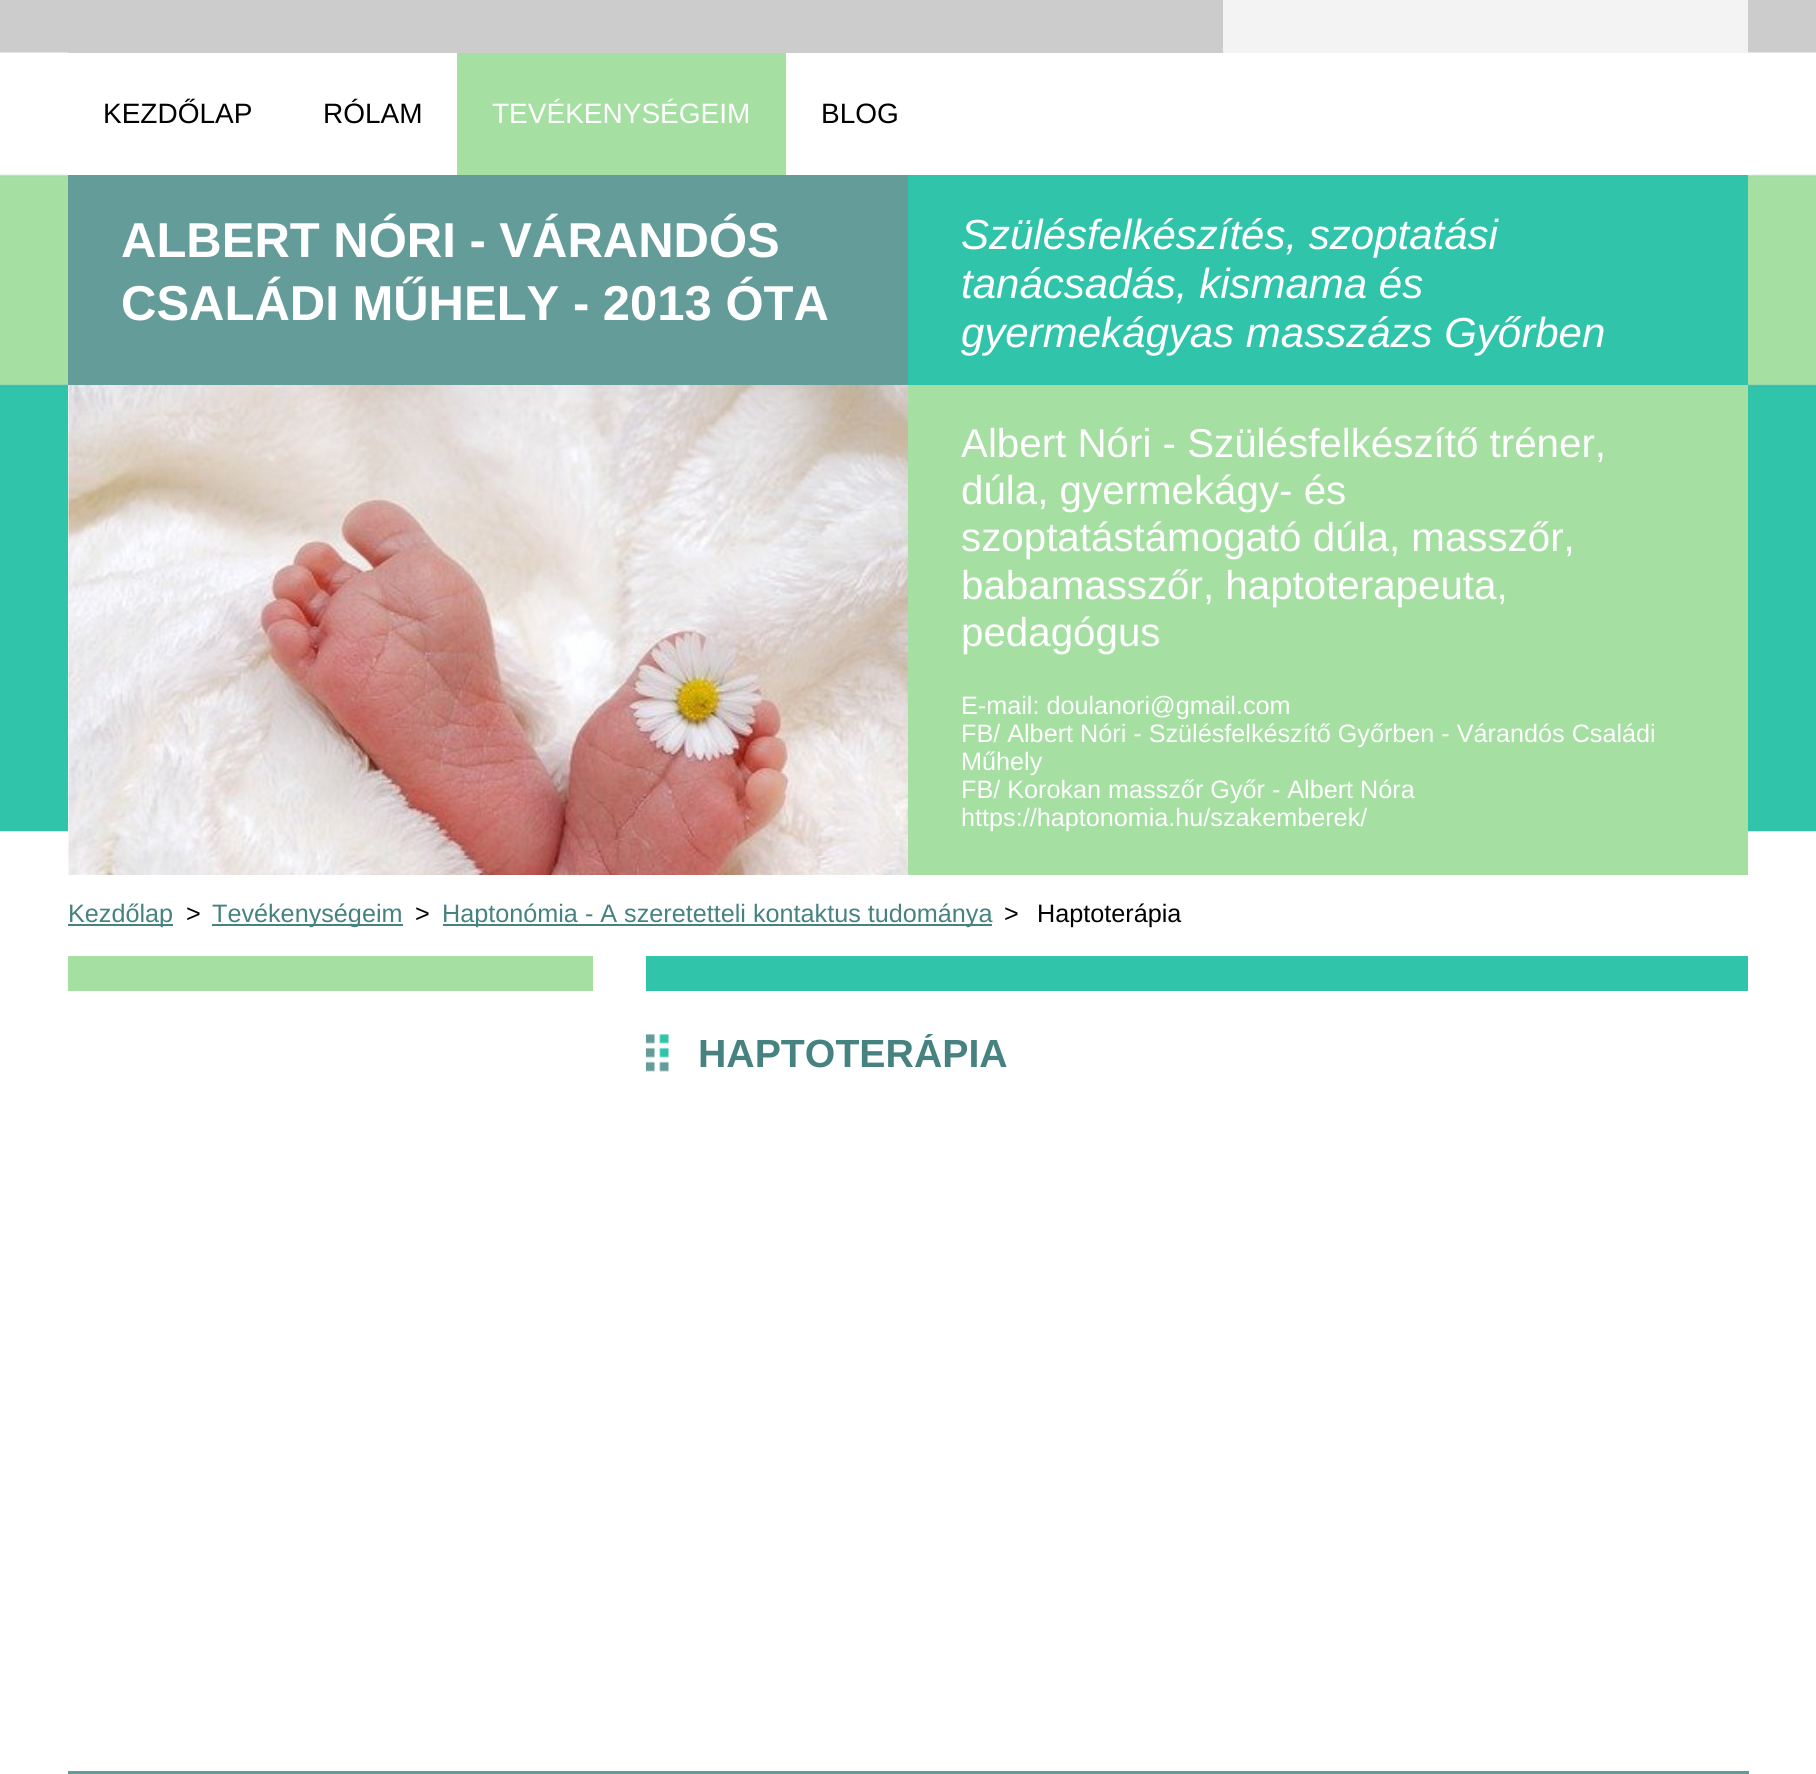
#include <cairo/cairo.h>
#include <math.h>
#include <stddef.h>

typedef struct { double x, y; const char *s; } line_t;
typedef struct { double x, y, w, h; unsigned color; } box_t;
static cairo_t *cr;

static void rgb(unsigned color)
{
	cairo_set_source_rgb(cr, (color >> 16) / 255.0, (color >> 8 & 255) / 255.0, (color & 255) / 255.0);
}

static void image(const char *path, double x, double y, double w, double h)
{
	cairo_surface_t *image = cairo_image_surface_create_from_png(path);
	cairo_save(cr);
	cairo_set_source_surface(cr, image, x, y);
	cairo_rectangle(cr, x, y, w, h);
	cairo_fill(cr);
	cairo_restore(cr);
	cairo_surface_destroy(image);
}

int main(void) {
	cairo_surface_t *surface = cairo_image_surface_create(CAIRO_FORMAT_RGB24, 1816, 1774);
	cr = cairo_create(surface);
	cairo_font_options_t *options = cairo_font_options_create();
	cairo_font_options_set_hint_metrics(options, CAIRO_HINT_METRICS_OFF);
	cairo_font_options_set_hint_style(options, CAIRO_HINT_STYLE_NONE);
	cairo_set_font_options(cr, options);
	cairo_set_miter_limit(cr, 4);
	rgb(0xffffff);
	cairo_paint(cr);
	image("img/1.png", 0, 0, 1816, 832);
	{
		static const box_t items[] = {
			{68, 52, 1155, 1, 0xcccccc},
			{1223, 0, 525, 53, 0xf3f3f3},
			{68, 174, 1680, 1, 0xffffff},
			{457, 53, 329, 122, 0xa5dfa2},
			{68, 175, 840, 210, 0x649c9a},
			{908, 175, 840, 210, 0x30c5ab},
			{68, 385, 1, 447, 0xffffff},
		};
		for (size_t i = 0; i < sizeof items / sizeof *items; i++) {
			rgb(items[i].color);
			cairo_rectangle(cr, items[i].x, items[i].y, items[i].w, items[i].h);
			cairo_fill(cr);
		}
	}
	image("img/2.png", 68, 385, 840, 490);
	{
		static const box_t items[] = {
			{908, 385, 840, 490, 0xa5dfa2},
			{68, 924, 105, 2, 0x468280},
			{212, 924, 191, 2, 0x468280},
			{443, 924, 549, 2, 0x468280},
			{68, 956, 525, 35, 0xa5dfa2},
			{646, 956, 1102, 35, 0x30c5ab},
		};
		for (size_t i = 0; i < sizeof items / sizeof *items; i++) {
			rgb(items[i].color);
			cairo_rectangle(cr, items[i].x, items[i].y, items[i].w, items[i].h);
			cairo_fill(cr);
		}
	}
	image("img/3.png", 645, 1034, 24, 38);
	rgb(0x649c9a);
	cairo_rectangle(cr, 68, 1771, 1681, 3);
	cairo_fill(cr);
	cairo_select_font_face(cr, "Liberation Sans", CAIRO_FONT_SLANT_NORMAL, CAIRO_FONT_WEIGHT_NORMAL);
	cairo_set_font_size(cr, 28);
	rgb(0x000000);
	cairo_move_to(cr, 103, 123);
	cairo_show_text(cr, "KEZDŐLAP");
	cairo_move_to(cr, 323, 123);
	cairo_show_text(cr, "RÓLAM");
	rgb(0xffffff);
	cairo_move_to(cr, 492, 123);
	cairo_show_text(cr, "TEVÉKENYSÉGEIM");
	rgb(0x000000);
	cairo_move_to(cr, 821, 123);
	cairo_show_text(cr, "BLOG");
	cairo_select_font_face(cr, "Liberation Sans", CAIRO_FONT_SLANT_NORMAL, CAIRO_FONT_WEIGHT_BOLD);
	cairo_set_font_size(cr, 49);
	rgb(0xffffff);
	cairo_move_to(cr, 121, 257);
	cairo_show_text(cr, "ALBERT NÓRI - VÁRANDÓS");
	cairo_move_to(cr, 121, 320);
	cairo_show_text(cr, "CSALÁDI MŰHELY - 2013 ÓTA");
	cairo_select_font_face(cr, "Liberation Sans", CAIRO_FONT_SLANT_ITALIC, CAIRO_FONT_WEIGHT_NORMAL);
	cairo_set_font_size(cr, 42);
	{
		static const line_t items[] = {
			{961, 249, "Szülésfelkészítés, szoptatási"},
			{961, 298, "tanácsadás, kismama és"},
			{961, 347, "gyermekágyas masszázs Győrben"},
		};
		for (size_t i = 0; i < sizeof items / sizeof *items; i++) {
			cairo_move_to(cr, items[i].x, items[i].y);
			cairo_show_text(cr, items[i].s);
		}
	}
	cairo_select_font_face(cr, "Liberation Sans", CAIRO_FONT_SLANT_NORMAL, CAIRO_FONT_WEIGHT_NORMAL);
	cairo_set_font_size(cr, 40.3);
	{
		static const line_t items[] = {
			{961, 457, "Albert Nóri - Szülésfelkészítő tréner,"},
			{961, 504, "dúla, gyermekágy- és"},
			{961, 551, "szoptatástámogató dúla, masszőr,"},
			{961, 599, "babamasszőr, haptoterapeuta,"},
			{961, 646, "pedagógus"},
		};
		for (size_t i = 0; i < sizeof items / sizeof *items; i++) {
			cairo_move_to(cr, items[i].x, items[i].y);
			cairo_show_text(cr, items[i].s);
		}
	}
	cairo_set_font_size(cr, 25.2);
	{
		static const line_t items[] = {
			{961, 714, "E-mail: doulanori@gmail.com"},
			{961, 742, "FB/ Albert Nóri - Szülésfelkészítő Győrben - Várandós Családi"},
			{961, 770, "Műhely"},
			{961, 798, "FB/ Korokan masszőr Győr - Albert Nóra"},
			{961, 826, "https://haptonomia.hu/szakemberek/"},
		};
		for (size_t i = 0; i < sizeof items / sizeof *items; i++) {
			cairo_move_to(cr, items[i].x, items[i].y);
			cairo_show_text(cr, items[i].s);
		}
	}
	rgb(0x468280);
	cairo_move_to(cr, 68, 922);
	cairo_show_text(cr, "Kezdőlap");
	rgb(0x000000);
	cairo_move_to(cr, 186, 922);
	cairo_show_text(cr, ">");
	rgb(0x468280);
	cairo_move_to(cr, 212, 922);
	cairo_show_text(cr, "Tevékenységeim");
	rgb(0x000000);
	cairo_move_to(cr, 415, 922);
	cairo_show_text(cr, ">");
	rgb(0x468280);
	cairo_move_to(cr, 442, 922);
	cairo_show_text(cr, "Haptonómia - A szeretetteli kontaktus tudománya");
	rgb(0x000000);
	cairo_move_to(cr, 1004, 922);
	cairo_show_text(cr, ">");
	cairo_move_to(cr, 1037, 922);
	cairo_show_text(cr, "Haptoterápia");
	cairo_save(cr);
	cairo_rectangle(cr, 646, 1034, 1102, 77);
	cairo_clip(cr);
	cairo_select_font_face(cr, "Liberation Sans", CAIRO_FONT_SLANT_NORMAL, CAIRO_FONT_WEIGHT_BOLD);
	cairo_set_font_size(cr, 39.25);
	rgb(0x468280);
	cairo_move_to(cr, 698, 1067);
	cairo_show_text(cr, "HAPTOTERÁPIA");
	cairo_restore(cr);
	cairo_surface_write_to_png(surface, "page.png");
	cairo_font_options_destroy(options);
	cairo_destroy(cr);
	cairo_surface_destroy(surface);
	return 0;
}
